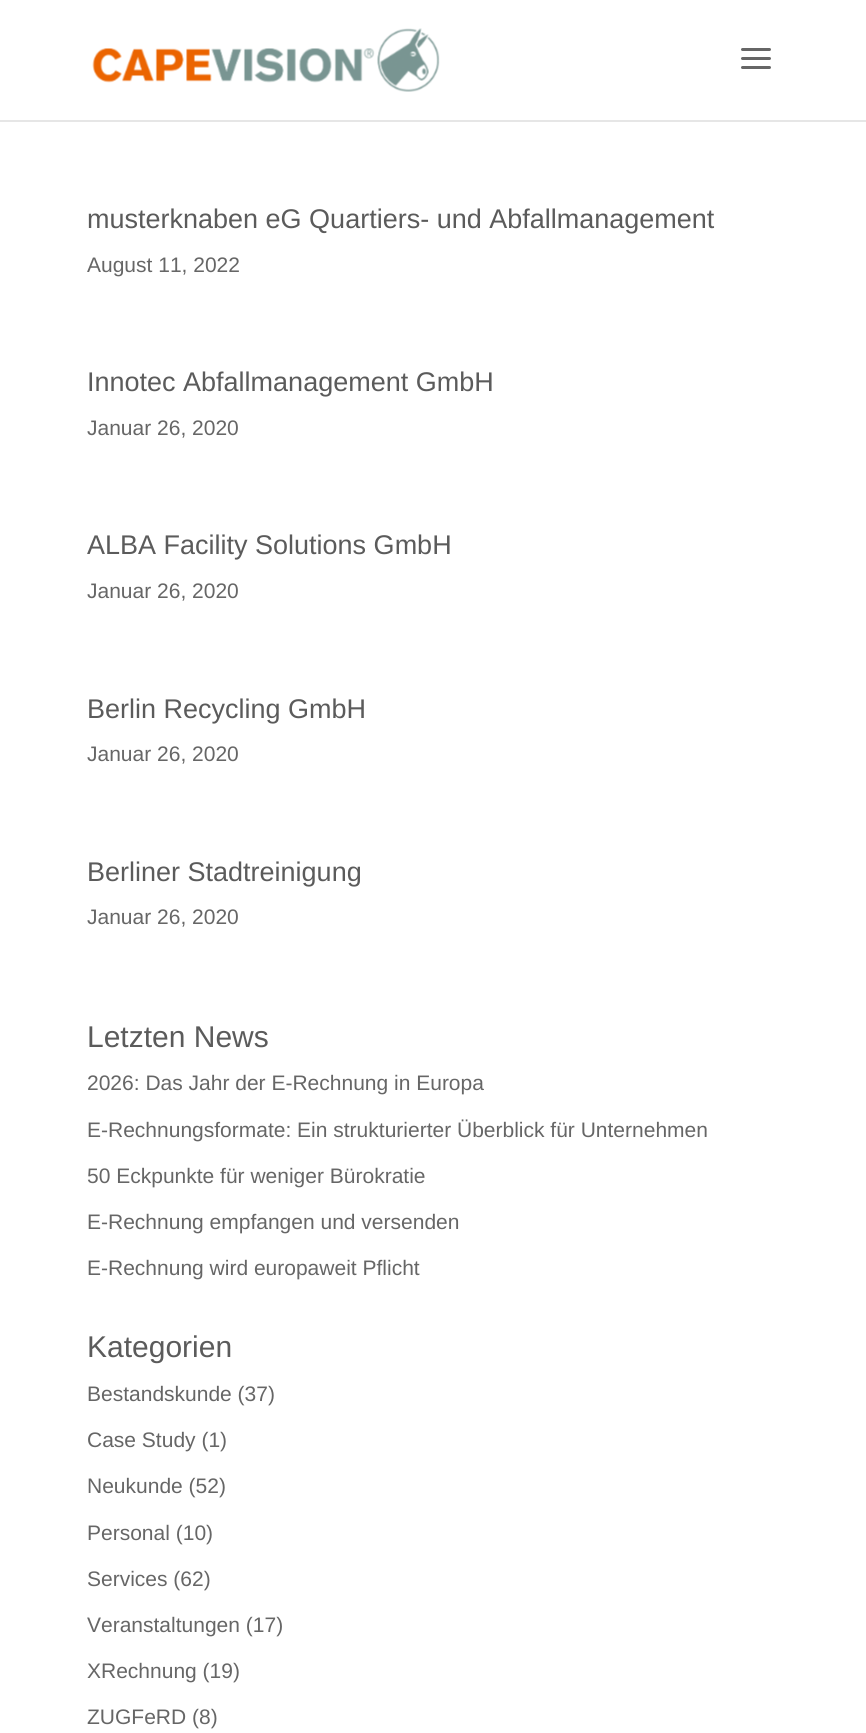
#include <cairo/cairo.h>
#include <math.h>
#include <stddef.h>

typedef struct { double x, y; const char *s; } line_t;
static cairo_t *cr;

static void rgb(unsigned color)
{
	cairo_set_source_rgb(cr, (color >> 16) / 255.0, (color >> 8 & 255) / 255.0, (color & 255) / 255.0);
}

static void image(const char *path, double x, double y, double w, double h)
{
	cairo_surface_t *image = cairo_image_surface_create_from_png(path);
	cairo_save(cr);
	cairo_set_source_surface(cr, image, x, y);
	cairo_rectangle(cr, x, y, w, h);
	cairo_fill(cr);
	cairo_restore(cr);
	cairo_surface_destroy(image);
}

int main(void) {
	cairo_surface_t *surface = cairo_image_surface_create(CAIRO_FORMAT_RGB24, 866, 1733);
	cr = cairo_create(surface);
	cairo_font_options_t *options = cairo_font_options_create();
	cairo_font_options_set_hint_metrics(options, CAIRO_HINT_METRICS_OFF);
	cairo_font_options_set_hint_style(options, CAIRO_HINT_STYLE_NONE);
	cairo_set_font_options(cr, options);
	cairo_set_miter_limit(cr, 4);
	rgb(0xffffff);
	cairo_paint(cr);
	rgb(0xe6e6e6);
	cairo_rectangle(cr, 0, 120, 866, 2);
	cairo_fill(cr);
	image("img/1.png", 92, 28, 348, 64);
	image("img/2.png", 741, 48, 30, 21);
	cairo_select_font_face(cr, "Liberation Sans", CAIRO_FONT_SLANT_NORMAL, CAIRO_FONT_WEIGHT_NORMAL);
	cairo_set_font_size(cr, 27);
	rgb(0x5b5b5b);
	cairo_move_to(cr, 87, 228);
	cairo_show_text(cr, "musterknaben eG Quartiers- und Abfallmanagement");
	cairo_set_font_size(cr, 21);
	rgb(0x666666);
	cairo_move_to(cr, 87, 272);
	cairo_show_text(cr, "August 11, 2022");
	cairo_set_font_size(cr, 27);
	rgb(0x5b5b5b);
	cairo_move_to(cr, 87, 391);
	cairo_show_text(cr, "Innotec Abfallmanagement GmbH");
	cairo_set_font_size(cr, 21);
	rgb(0x666666);
	cairo_move_to(cr, 87, 435);
	cairo_show_text(cr, "Januar 26, 2020");
	cairo_set_font_size(cr, 27);
	rgb(0x5b5b5b);
	cairo_move_to(cr, 87, 554);
	cairo_show_text(cr, "ALBA Facility Solutions GmbH");
	cairo_set_font_size(cr, 21);
	rgb(0x666666);
	cairo_move_to(cr, 87, 598);
	cairo_show_text(cr, "Januar 26, 2020");
	cairo_set_font_size(cr, 27);
	rgb(0x5b5b5b);
	cairo_move_to(cr, 87, 718);
	cairo_show_text(cr, "Berlin Recycling GmbH");
	cairo_set_font_size(cr, 21);
	rgb(0x666666);
	cairo_move_to(cr, 87, 761);
	cairo_show_text(cr, "Januar 26, 2020");
	cairo_set_font_size(cr, 27);
	rgb(0x5b5b5b);
	cairo_move_to(cr, 87, 881);
	cairo_show_text(cr, "Berliner Stadtreinigung");
	cairo_set_font_size(cr, 21);
	rgb(0x666666);
	cairo_move_to(cr, 87, 924);
	cairo_show_text(cr, "Januar 26, 2020");
	cairo_set_font_size(cr, 30);
	rgb(0x5b5b5b);
	cairo_move_to(cr, 87, 1047);
	cairo_show_text(cr, "Letzten News");
	cairo_set_font_size(cr, 21);
	rgb(0x666666);
	{
		static const line_t items[] = {
			{87, 1090, "2026: Das Jahr der E-Rechnung in Europa"},
			{87, 1137, "E-Rechnungsformate: Ein strukturierter Überblick für Unternehmen"},
			{87, 1183, "50 Eckpunkte für weniger Bürokratie"},
			{87, 1229, "E-Rechnung empfangen und versenden"},
			{87, 1275, "E-Rechnung wird europaweit Pflicht"},
		};
		for (size_t i = 0; i < sizeof items / sizeof *items; i++) {
			cairo_move_to(cr, items[i].x, items[i].y);
			cairo_show_text(cr, items[i].s);
		}
	}
	cairo_set_font_size(cr, 30);
	rgb(0x5b5b5b);
	cairo_move_to(cr, 87, 1357);
	cairo_show_text(cr, "Kategorien");
	cairo_set_font_size(cr, 21);
	rgb(0x666666);
	{
		static const line_t items[] = {
			{87, 1401, "Bestandskunde (37)"},
			{87, 1447, "Case Study (1)"},
			{87, 1493, "Neukunde (52)"},
			{87, 1540, "Personal (10)"},
			{87, 1586, "Services (62)"},
			{87, 1632, "Veranstaltungen (17)"},
			{87, 1678, "XRechnung (19)"},
			{87, 1724, "ZUGFeRD (8)"},
		};
		for (size_t i = 0; i < sizeof items / sizeof *items; i++) {
			cairo_move_to(cr, items[i].x, items[i].y);
			cairo_show_text(cr, items[i].s);
		}
	}
	cairo_surface_write_to_png(surface, "page.png");
	cairo_font_options_destroy(options);
	cairo_destroy(cr);
	cairo_surface_destroy(surface);
	return 0;
}
